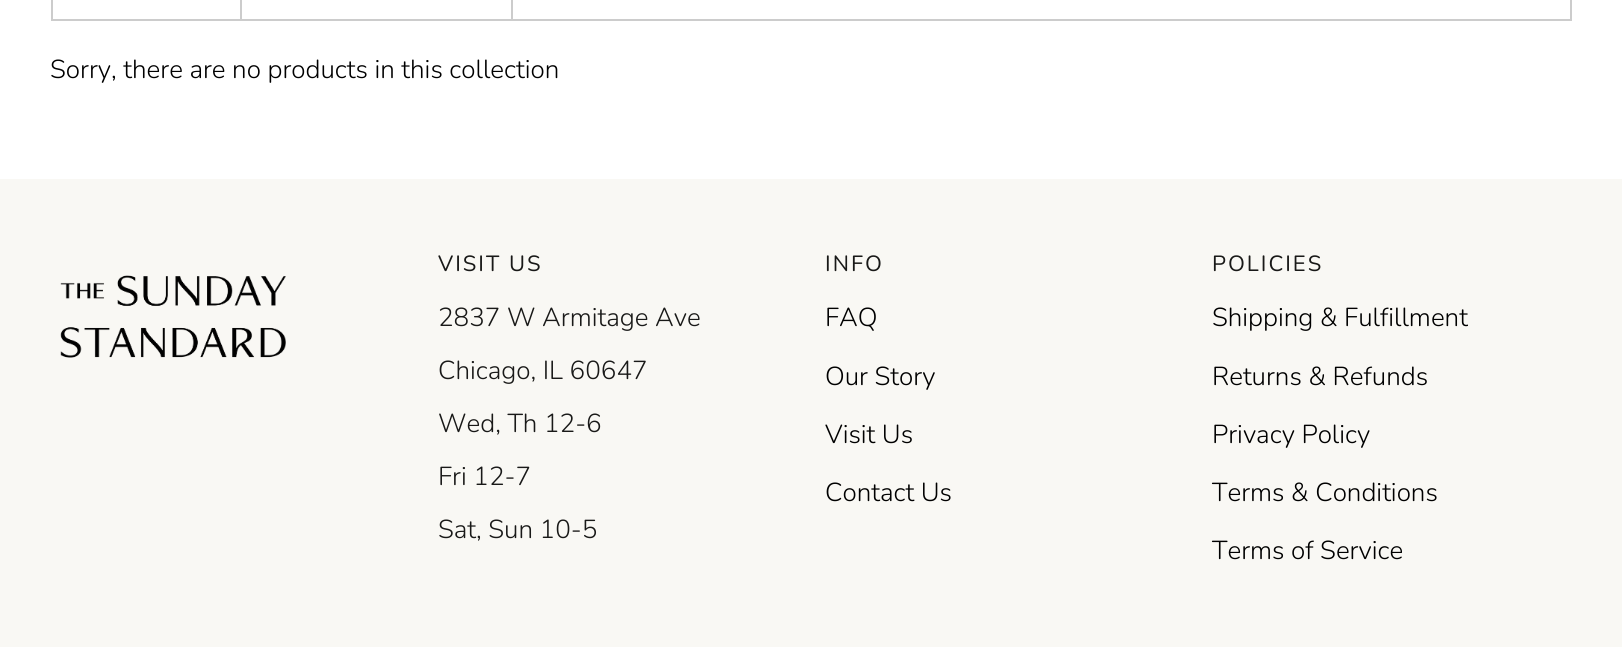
#include <cairo/cairo.h>
#include <math.h>
#include <stddef.h>

typedef struct { double x, y; const char *s; } line_t;
typedef struct { double x, y, w, h; unsigned color; } box_t;
static cairo_t *cr;

static void rgb(unsigned color)
{
	cairo_set_source_rgb(cr, (color >> 16) / 255.0, (color >> 8 & 255) / 255.0, (color & 255) / 255.0);
}

static void tracked(double x, double y, const char *s, double letter, double word)
{
	cairo_move_to(cr, x, y);
	while (*s) {
		char ch[5] = {0};
		int n = 0;
		do ch[n++] = *s++; while ((*s & 0xC0) == 0x80);
		cairo_show_text(cr, ch);
		cairo_rel_move_to(cr, letter + word * (*ch == ' '), 0);
	}
}

static void image(const char *path, double x, double y, double w, double h)
{
	cairo_surface_t *image = cairo_image_surface_create_from_png(path);
	cairo_save(cr);
	cairo_set_source_surface(cr, image, x, y);
	cairo_rectangle(cr, x, y, w, h);
	cairo_fill(cr);
	cairo_restore(cr);
	cairo_surface_destroy(image);
}

int main(void) {
	cairo_surface_t *surface = cairo_image_surface_create(CAIRO_FORMAT_RGB24, 1622, 647);
	cr = cairo_create(surface);
	cairo_font_options_t *options = cairo_font_options_create();
	cairo_font_options_set_hint_metrics(options, CAIRO_HINT_METRICS_OFF);
	cairo_font_options_set_hint_style(options, CAIRO_HINT_STYLE_NONE);
	cairo_set_font_options(cr, options);
	cairo_set_miter_limit(cr, 4);
	rgb(0xffffff);
	cairo_paint(cr);
	cairo_rectangle(cr, 52, -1, 1519, 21);
	rgb(0xcccccc);
	cairo_stroke(cr);
	{
		static const box_t items[] = {
			{240, 0, 2, 19, 0xcccccc},
			{511, 0, 2, 19, 0xcccccc},
			{0, 179, 1622, 468, 0xf9f8f4},
		};
		for (size_t i = 0; i < sizeof items / sizeof *items; i++) {
			rgb(items[i].color);
			cairo_rectangle(cr, items[i].x, items[i].y, items[i].w, items[i].h);
			cairo_fill(cr);
		}
	}
	image("img/1.png", 60, 275, 226, 83);
	cairo_select_font_face(cr, "Nunito Light", CAIRO_FONT_SLANT_NORMAL, CAIRO_FONT_WEIGHT_NORMAL);
	cairo_set_font_size(cr, 26);
	rgb(0x000000);
	cairo_move_to(cr, 50, 78);
	cairo_show_text(cr, "Sorry, there are no products in this collection");
	cairo_select_font_face(cr, "Nunito", CAIRO_FONT_SLANT_NORMAL, CAIRO_FONT_WEIGHT_NORMAL);
	cairo_set_font_size(cr, 22);
	rgb(0x191918);
	tracked(438, 271, "VISIT US", 2, 0);
	cairo_select_font_face(cr, "Nunito Light", CAIRO_FONT_SLANT_NORMAL, CAIRO_FONT_WEIGHT_NORMAL);
	cairo_set_font_size(cr, 26);
	{
		static const line_t items[] = {
			{438, 326, "2837 W Armitage Ave"},
			{438, 379, "Chicago, IL 60647"},
			{438, 432, "Wed, Th 12-6"},
			{438, 485, "Fri 12-7"},
			{438, 538, "Sat, Sun 10-5"},
		};
		for (size_t i = 0; i < sizeof items / sizeof *items; i++) {
			cairo_move_to(cr, items[i].x, items[i].y);
			cairo_show_text(cr, items[i].s);
		}
	}
	cairo_select_font_face(cr, "Nunito", CAIRO_FONT_SLANT_NORMAL, CAIRO_FONT_WEIGHT_NORMAL);
	cairo_set_font_size(cr, 22);
	tracked(825, 271, "INFO", 2, 0);
	cairo_select_font_face(cr, "Nunito Light", CAIRO_FONT_SLANT_NORMAL, CAIRO_FONT_WEIGHT_NORMAL);
	cairo_set_font_size(cr, 26);
	rgb(0x000000);
	{
		static const line_t items[] = {
			{825, 326, "FAQ"},
			{825, 385, "Our Story"},
			{825, 443, "Visit Us"},
			{825, 501, "Contact Us"},
		};
		for (size_t i = 0; i < sizeof items / sizeof *items; i++) {
			cairo_move_to(cr, items[i].x, items[i].y);
			cairo_show_text(cr, items[i].s);
		}
	}
	cairo_select_font_face(cr, "Nunito", CAIRO_FONT_SLANT_NORMAL, CAIRO_FONT_WEIGHT_NORMAL);
	cairo_set_font_size(cr, 22);
	rgb(0x191918);
	tracked(1212, 271, "POLICIES", 2, 0);
	cairo_select_font_face(cr, "Nunito Light", CAIRO_FONT_SLANT_NORMAL, CAIRO_FONT_WEIGHT_NORMAL);
	cairo_set_font_size(cr, 26);
	rgb(0x000000);
	{
		static const line_t items[] = {
			{1212, 326, "Shipping & Fulfillment"},
			{1212, 385, "Returns & Refunds"},
			{1212, 443, "Privacy Policy"},
			{1212, 501, "Terms & Conditions"},
			{1212, 559, "Terms of Service"},
		};
		for (size_t i = 0; i < sizeof items / sizeof *items; i++) {
			cairo_move_to(cr, items[i].x, items[i].y);
			cairo_show_text(cr, items[i].s);
		}
	}
	cairo_surface_write_to_png(surface, "page.png");
	cairo_font_options_destroy(options);
	cairo_destroy(cr);
	cairo_surface_destroy(surface);
	return 0;
}
